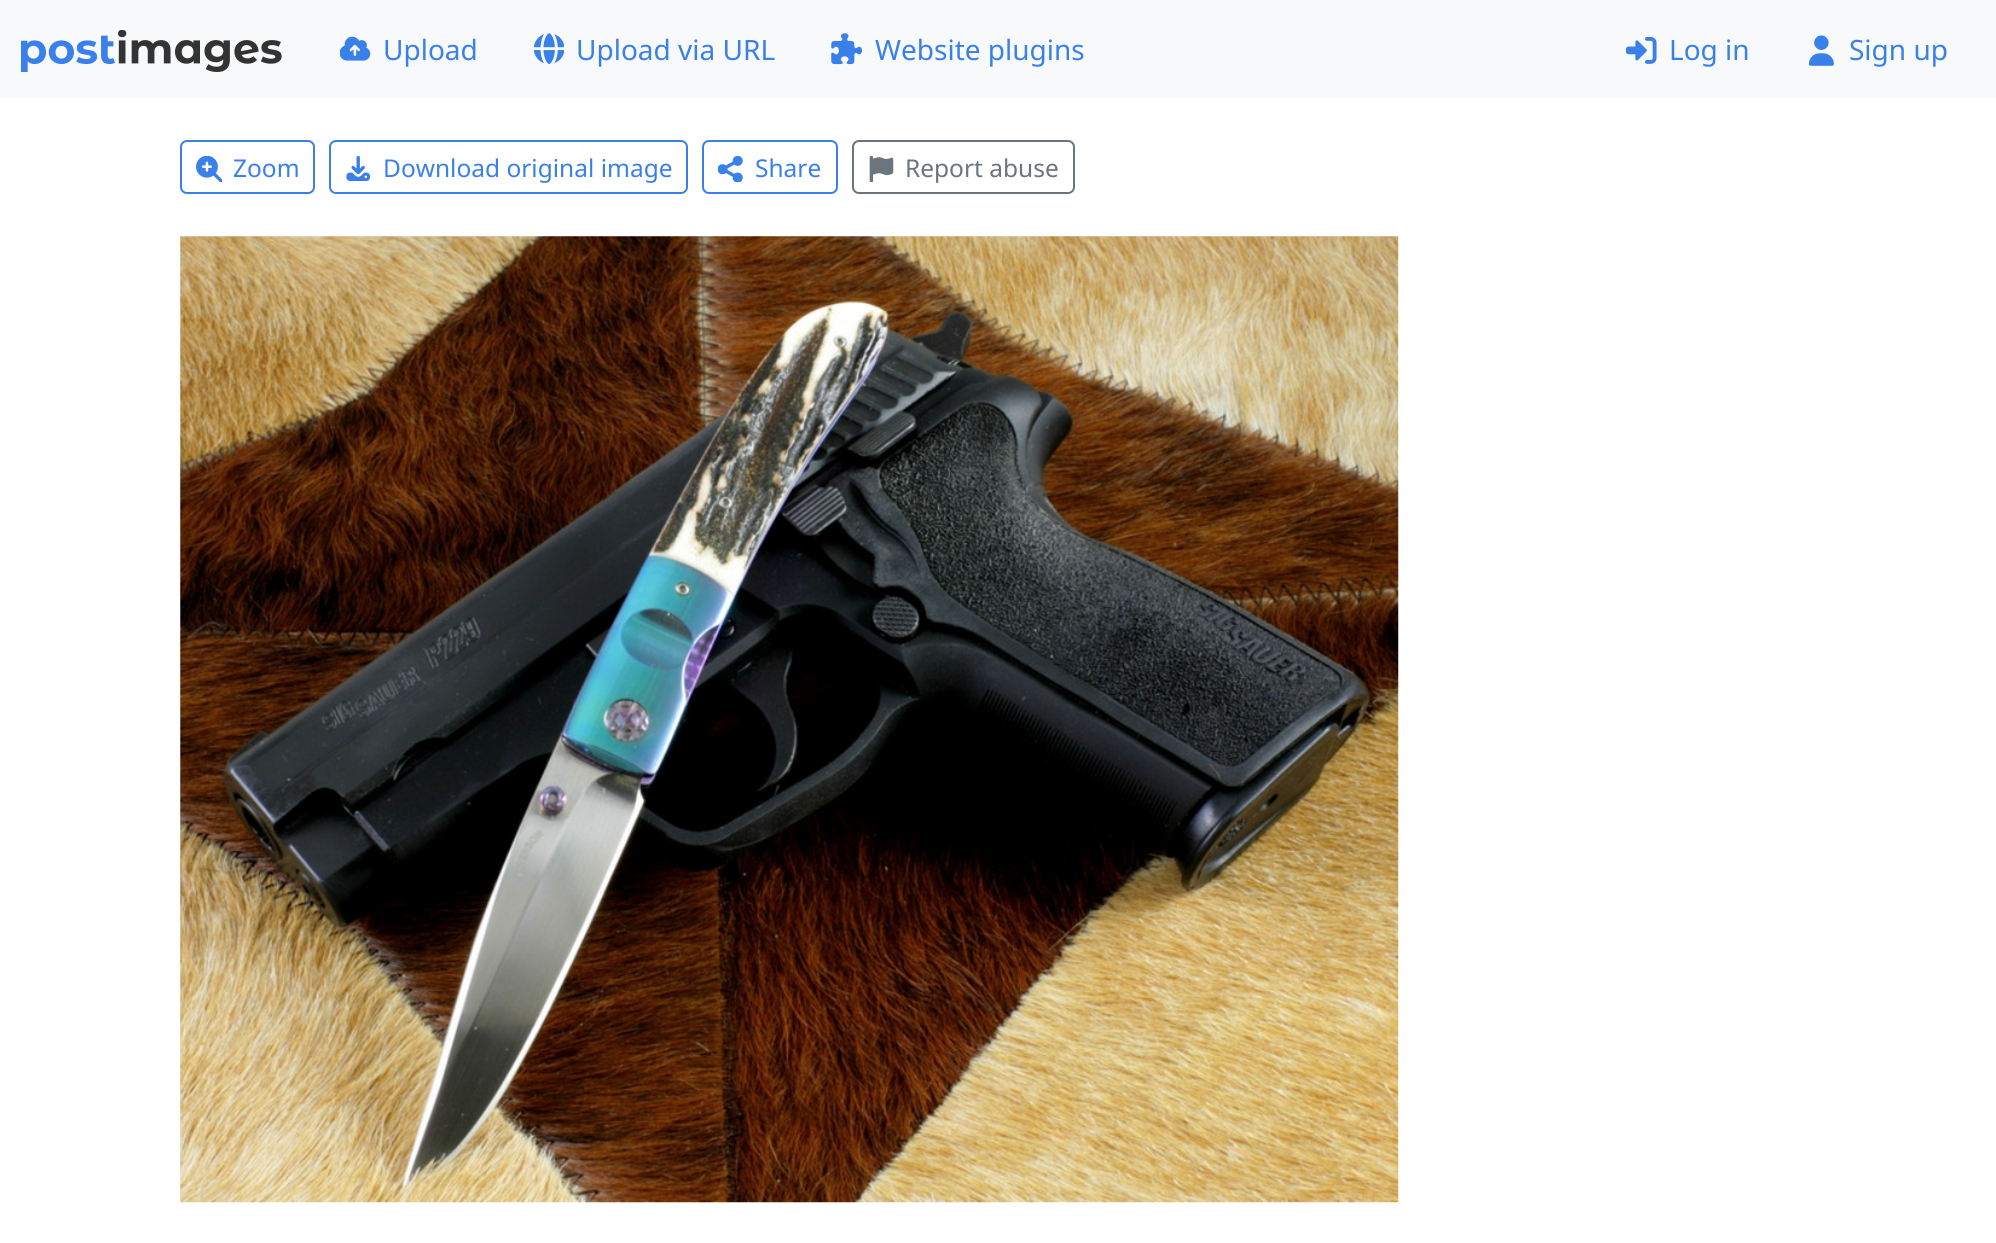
#include <cairo/cairo.h>
#include <math.h>
#include <stddef.h>

typedef struct { double x, y; const char *s; } line_t;
static cairo_t *cr;

static void rgb(unsigned color)
{
	cairo_set_source_rgb(cr, (color >> 16) / 255.0, (color >> 8 & 255) / 255.0, (color & 255) / 255.0);
}

static void rrect(double x, double y, double w, double h, double r)
{
	cairo_new_sub_path(cr);
	cairo_arc(cr, x + w - r, y + h - r, r, 0, M_PI / 2);
	cairo_arc(cr, x + r, y + h - r, r, M_PI / 2, M_PI);
	cairo_arc(cr, x + r, y + r, r, M_PI, 1.5 * M_PI);
	cairo_arc(cr, x + w - r, y + r, r, 1.5 * M_PI, 2 * M_PI);
	cairo_close_path(cr);
}

static void image(const char *path, double x, double y, double w, double h)
{
	cairo_surface_t *image = cairo_image_surface_create_from_png(path);
	cairo_save(cr);
	cairo_set_source_surface(cr, image, x, y);
	cairo_rectangle(cr, x, y, w, h);
	cairo_fill(cr);
	cairo_restore(cr);
	cairo_surface_destroy(image);
}

int main(void) {
	cairo_surface_t *surface = cairo_image_surface_create(CAIRO_FORMAT_RGB24, 1996, 1243);
	cr = cairo_create(surface);
	cairo_font_options_t *options = cairo_font_options_create();
	cairo_font_options_set_hint_metrics(options, CAIRO_HINT_METRICS_OFF);
	cairo_font_options_set_hint_style(options, CAIRO_HINT_STYLE_NONE);
	cairo_set_font_options(cr, options);
	cairo_set_miter_limit(cr, 4);
	rgb(0xffffff);
	cairo_paint(cr);
	rgb(0xf8f9fa);
	cairo_rectangle(cr, 0, 0, 1996, 98);
	cairo_fill(cr);
	image("img/1.png", 21, 30, 261, 42);
	image("img/2.png", 340, 36, 31, 25);
	image("img/3.png", 534, 33, 30, 31);
	image("img/4.png", 831, 33, 31, 32);
	image("img/5.png", 1626, 36, 31, 28);
	image("img/6.png", 1808, 35, 26, 31);
	rrect(181, 141, 133, 52, 6);
	rgb(0x3a80ea);
	cairo_stroke(cr);
	image("img/7.png", 196, 156, 26, 26);
	rrect(330, 141, 357, 52, 6);
	cairo_stroke(cr);
	image("img/8.png", 346, 156, 24, 25);
	rrect(703, 141, 134, 52, 6);
	cairo_stroke(cr);
	image("img/9.png", 718, 156, 25, 26);
	rrect(853, 141, 221, 52, 6);
	rgb(0x6c757d);
	cairo_stroke(cr);
	image("img/10.png", 869, 156, 25, 26);
	image("img/11.png", 180, 236, 1219, 967);
	cairo_select_font_face(cr, "Noto Sans", CAIRO_FONT_SLANT_NORMAL, CAIRO_FONT_WEIGHT_NORMAL);
	cairo_set_font_size(cr, 28);
	rgb(0x3a80ea);
	{
		static const line_t items[] = {
			{383, 60, "Upload"},
			{576, 60, "Upload via URL"},
			{875, 60, "Website plugins"},
			{1669, 60, "Log in"},
			{1849, 60, "Sign up"},
		};
		for (size_t i = 0; i < sizeof items / sizeof *items; i++) {
			cairo_move_to(cr, items[i].x, items[i].y);
			cairo_show_text(cr, items[i].s);
		}
	}
	cairo_set_font_size(cr, 24.5);
	{
		static const line_t items[] = {
			{233, 177, "Zoom"},
			{383, 177, "Download original image"},
			{755, 177, "Share"},
		};
		for (size_t i = 0; i < sizeof items / sizeof *items; i++) {
			cairo_move_to(cr, items[i].x, items[i].y);
			cairo_show_text(cr, items[i].s);
		}
	}
	rgb(0x6c757d);
	cairo_move_to(cr, 905, 177);
	cairo_show_text(cr, "Report abuse");
	cairo_surface_write_to_png(surface, "page.png");
	cairo_font_options_destroy(options);
	cairo_destroy(cr);
	cairo_surface_destroy(surface);
	return 0;
}
